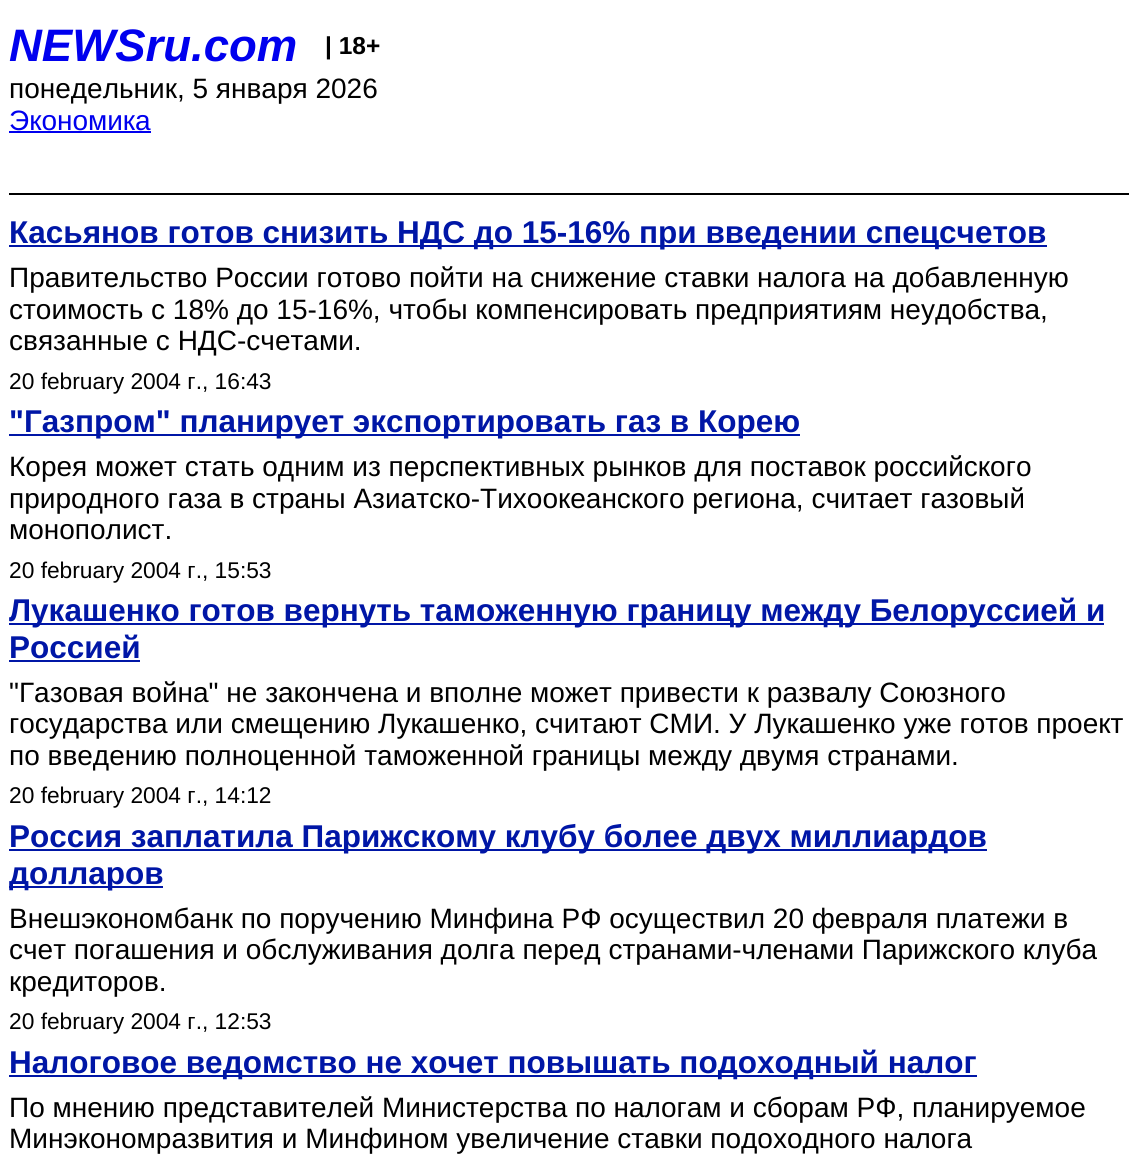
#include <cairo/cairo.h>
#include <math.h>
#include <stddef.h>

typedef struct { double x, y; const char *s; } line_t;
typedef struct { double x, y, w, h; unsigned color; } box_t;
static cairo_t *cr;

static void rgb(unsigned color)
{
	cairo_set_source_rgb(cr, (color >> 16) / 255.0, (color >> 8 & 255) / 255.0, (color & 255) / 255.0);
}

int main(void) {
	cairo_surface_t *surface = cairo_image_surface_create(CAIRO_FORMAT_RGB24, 1137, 1175);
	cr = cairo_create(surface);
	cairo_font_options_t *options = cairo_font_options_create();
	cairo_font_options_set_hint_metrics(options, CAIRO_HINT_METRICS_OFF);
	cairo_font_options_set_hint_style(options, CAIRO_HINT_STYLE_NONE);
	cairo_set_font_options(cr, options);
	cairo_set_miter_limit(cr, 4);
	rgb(0xffffff);
	cairo_paint(cr);
	{
		static const box_t items[] = {
			{9, 193, 1120, 2, 0x000000},
			{9, 131, 142, 2, 0x0000ee},
			{9, 245, 1038, 2, 0x0016a6},
			{9, 434, 791, 2, 0x0016a6},
			{9, 623, 1095, 2, 0x0016a6},
			{9, 660, 131, 2, 0x0016a6},
			{9, 849, 978, 2, 0x0016a6},
			{9, 886, 154, 2, 0x0016a6},
			{9, 1075, 968, 2, 0x0016a6},
		};
		for (size_t i = 0; i < sizeof items / sizeof *items; i++) {
			rgb(items[i].color);
			cairo_rectangle(cr, items[i].x, items[i].y, items[i].w, items[i].h);
			cairo_fill(cr);
		}
	}
	cairo_select_font_face(cr, "Liberation Sans", CAIRO_FONT_SLANT_ITALIC, CAIRO_FONT_WEIGHT_BOLD);
	cairo_set_font_size(cr, 45.5);
	rgb(0x0000ee);
	cairo_move_to(cr, 9, 61);
	cairo_show_text(cr, "NEWSru.com");
	cairo_select_font_face(cr, "Liberation Sans", CAIRO_FONT_SLANT_NORMAL, CAIRO_FONT_WEIGHT_BOLD);
	cairo_set_font_size(cr, 24.5);
	rgb(0x000000);
	cairo_move_to(cr, 325, 54);
	cairo_show_text(cr, "| 18+");
	cairo_select_font_face(cr, "Liberation Sans", CAIRO_FONT_SLANT_NORMAL, CAIRO_FONT_WEIGHT_NORMAL);
	cairo_set_font_size(cr, 28);
	cairo_move_to(cr, 9, 98);
	cairo_show_text(cr, "понедельник, 5 января 2026");
	rgb(0x0000ee);
	cairo_move_to(cr, 9, 130);
	cairo_show_text(cr, "Экономика");
	cairo_select_font_face(cr, "Liberation Sans", CAIRO_FONT_SLANT_NORMAL, CAIRO_FONT_WEIGHT_BOLD);
	cairo_set_font_size(cr, 31.5);
	rgb(0x0016a6);
	cairo_move_to(cr, 9, 243);
	cairo_show_text(cr, "Касьянов готов снизить НДС до 15-16% при введении спецсчетов");
	cairo_select_font_face(cr, "Liberation Sans", CAIRO_FONT_SLANT_NORMAL, CAIRO_FONT_WEIGHT_NORMAL);
	cairo_set_font_size(cr, 28);
	rgb(0x000000);
	{
		static const line_t items[] = {
			{9, 287, "Правительство России готово пойти на снижение ставки налога на добавленную"},
			{9, 319, "стоимость с 18% до 15-16%, чтобы компенсировать предприятиям неудобства,"},
			{9, 350, "связанные с НДС-счетами."},
		};
		for (size_t i = 0; i < sizeof items / sizeof *items; i++) {
			cairo_move_to(cr, items[i].x, items[i].y);
			cairo_show_text(cr, items[i].s);
		}
	}
	cairo_set_font_size(cr, 22.75);
	cairo_move_to(cr, 9, 389);
	cairo_show_text(cr, "20 february 2004 г., 16:43");
	cairo_select_font_face(cr, "Liberation Sans", CAIRO_FONT_SLANT_NORMAL, CAIRO_FONT_WEIGHT_BOLD);
	cairo_set_font_size(cr, 31.5);
	rgb(0x0016a6);
	cairo_move_to(cr, 9, 432);
	cairo_show_text(cr, "\"Газпром\" планирует экспортировать газ в Корею");
	cairo_select_font_face(cr, "Liberation Sans", CAIRO_FONT_SLANT_NORMAL, CAIRO_FONT_WEIGHT_NORMAL);
	cairo_set_font_size(cr, 28);
	rgb(0x000000);
	{
		static const line_t items[] = {
			{9, 476, "Корея может стать одним из перспективных рынков для поставок российского"},
			{9, 508, "природного газа в страны Азиатско-Тихоокеанского региона, считает газовый"},
			{9, 539, "монополист."},
		};
		for (size_t i = 0; i < sizeof items / sizeof *items; i++) {
			cairo_move_to(cr, items[i].x, items[i].y);
			cairo_show_text(cr, items[i].s);
		}
	}
	cairo_set_font_size(cr, 22.75);
	cairo_move_to(cr, 9, 578);
	cairo_show_text(cr, "20 february 2004 г., 15:53");
	cairo_select_font_face(cr, "Liberation Sans", CAIRO_FONT_SLANT_NORMAL, CAIRO_FONT_WEIGHT_BOLD);
	cairo_set_font_size(cr, 31.5);
	rgb(0x0016a6);
	cairo_move_to(cr, 9, 621);
	cairo_show_text(cr, "Лукашенко готов вернуть таможенную границу между Белоруссией и");
	cairo_move_to(cr, 9, 658);
	cairo_show_text(cr, "Россией");
	cairo_select_font_face(cr, "Liberation Sans", CAIRO_FONT_SLANT_NORMAL, CAIRO_FONT_WEIGHT_NORMAL);
	cairo_set_font_size(cr, 28);
	rgb(0x000000);
	{
		static const line_t items[] = {
			{9, 702, "\"Газовая война\" не закончена и вполне может привести к развалу Союзного"},
			{9, 733, "государства или смещению Лукашенко, считают СМИ. У Лукашенко уже готов проект"},
			{9, 765, "по введению полноценной таможенной границы между двумя странами."},
		};
		for (size_t i = 0; i < sizeof items / sizeof *items; i++) {
			cairo_move_to(cr, items[i].x, items[i].y);
			cairo_show_text(cr, items[i].s);
		}
	}
	cairo_set_font_size(cr, 22.75);
	cairo_move_to(cr, 9, 803);
	cairo_show_text(cr, "20 february 2004 г., 14:12");
	cairo_select_font_face(cr, "Liberation Sans", CAIRO_FONT_SLANT_NORMAL, CAIRO_FONT_WEIGHT_BOLD);
	cairo_set_font_size(cr, 31.5);
	rgb(0x0016a6);
	cairo_move_to(cr, 9, 847);
	cairo_show_text(cr, "Россия заплатила Парижскому клубу более двух миллиардов");
	cairo_move_to(cr, 9, 884);
	cairo_show_text(cr, "долларов");
	cairo_select_font_face(cr, "Liberation Sans", CAIRO_FONT_SLANT_NORMAL, CAIRO_FONT_WEIGHT_NORMAL);
	cairo_set_font_size(cr, 28);
	rgb(0x000000);
	{
		static const line_t items[] = {
			{9, 928, "Внешэкономбанк по поручению Минфина РФ осуществил 20 февраля платежи в"},
			{9, 959, "счет погашения и обслуживания долга перед странами-членами Парижского клуба"},
			{9, 991, "кредиторов."},
		};
		for (size_t i = 0; i < sizeof items / sizeof *items; i++) {
			cairo_move_to(cr, items[i].x, items[i].y);
			cairo_show_text(cr, items[i].s);
		}
	}
	cairo_set_font_size(cr, 22.75);
	cairo_move_to(cr, 9, 1029);
	cairo_show_text(cr, "20 february 2004 г., 12:53");
	cairo_select_font_face(cr, "Liberation Sans", CAIRO_FONT_SLANT_NORMAL, CAIRO_FONT_WEIGHT_BOLD);
	cairo_set_font_size(cr, 31.5);
	rgb(0x0016a6);
	cairo_move_to(cr, 9, 1073);
	cairo_show_text(cr, "Налоговое ведомство не хочет повышать подоходный налог");
	cairo_select_font_face(cr, "Liberation Sans", CAIRO_FONT_SLANT_NORMAL, CAIRO_FONT_WEIGHT_NORMAL);
	cairo_set_font_size(cr, 28);
	rgb(0x000000);
	cairo_move_to(cr, 9, 1117);
	cairo_show_text(cr, "По мнению представителей Министерства по налогам и сборам РФ, планируемое");
	cairo_move_to(cr, 9, 1148);
	cairo_show_text(cr, "Минэкономразвития и Минфином увеличение ставки подоходного налога");
	cairo_surface_write_to_png(surface, "page.png");
	cairo_font_options_destroy(options);
	cairo_destroy(cr);
	cairo_surface_destroy(surface);
	return 0;
}
